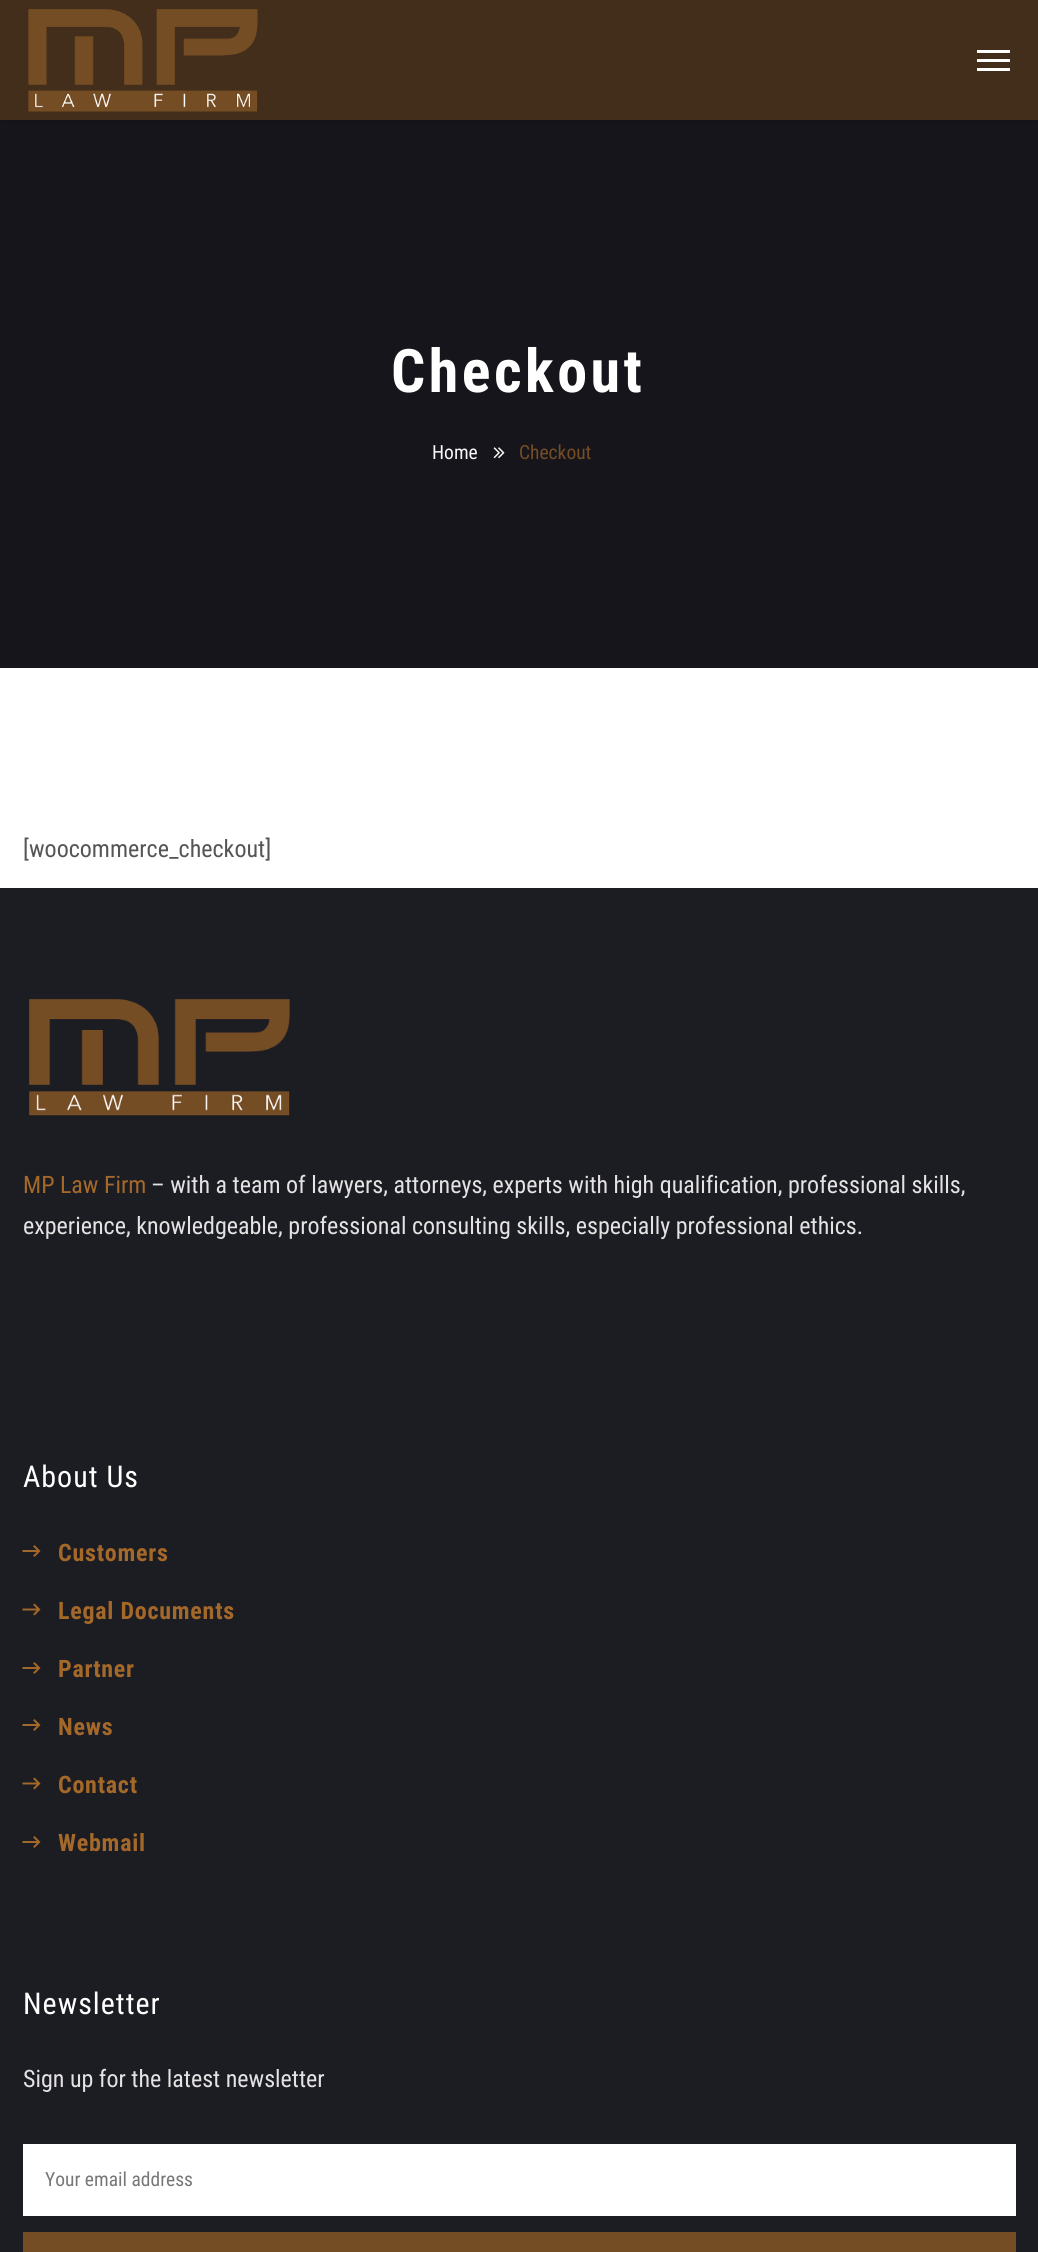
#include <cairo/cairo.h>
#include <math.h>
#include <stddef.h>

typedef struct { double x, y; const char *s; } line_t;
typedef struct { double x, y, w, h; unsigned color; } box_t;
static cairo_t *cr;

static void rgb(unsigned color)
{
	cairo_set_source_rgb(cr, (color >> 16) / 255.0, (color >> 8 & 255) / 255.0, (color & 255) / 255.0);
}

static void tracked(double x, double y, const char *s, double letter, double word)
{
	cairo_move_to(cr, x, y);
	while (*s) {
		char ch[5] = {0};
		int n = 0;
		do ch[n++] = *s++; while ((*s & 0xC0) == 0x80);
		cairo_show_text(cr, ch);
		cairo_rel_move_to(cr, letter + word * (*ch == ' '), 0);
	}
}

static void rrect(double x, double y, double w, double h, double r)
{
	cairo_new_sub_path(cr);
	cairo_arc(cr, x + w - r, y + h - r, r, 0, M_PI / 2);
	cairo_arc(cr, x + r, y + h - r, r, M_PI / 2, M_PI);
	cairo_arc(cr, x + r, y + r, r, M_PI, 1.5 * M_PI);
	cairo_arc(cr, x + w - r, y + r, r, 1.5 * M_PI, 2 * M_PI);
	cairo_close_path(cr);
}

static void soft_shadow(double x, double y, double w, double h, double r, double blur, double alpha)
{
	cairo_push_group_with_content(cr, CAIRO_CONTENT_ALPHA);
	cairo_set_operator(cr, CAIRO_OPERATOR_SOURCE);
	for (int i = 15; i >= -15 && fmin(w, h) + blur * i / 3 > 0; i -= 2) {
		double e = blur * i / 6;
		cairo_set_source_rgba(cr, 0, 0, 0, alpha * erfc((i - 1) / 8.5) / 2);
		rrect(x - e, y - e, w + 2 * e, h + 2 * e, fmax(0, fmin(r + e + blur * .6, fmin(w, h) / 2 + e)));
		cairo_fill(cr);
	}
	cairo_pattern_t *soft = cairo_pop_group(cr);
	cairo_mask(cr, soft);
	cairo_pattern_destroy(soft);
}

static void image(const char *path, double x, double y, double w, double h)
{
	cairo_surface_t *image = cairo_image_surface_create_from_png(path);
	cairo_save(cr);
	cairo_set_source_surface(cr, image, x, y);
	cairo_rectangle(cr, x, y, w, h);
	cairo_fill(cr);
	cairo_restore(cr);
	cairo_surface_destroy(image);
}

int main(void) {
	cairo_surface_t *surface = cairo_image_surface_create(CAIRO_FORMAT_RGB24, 1038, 2252);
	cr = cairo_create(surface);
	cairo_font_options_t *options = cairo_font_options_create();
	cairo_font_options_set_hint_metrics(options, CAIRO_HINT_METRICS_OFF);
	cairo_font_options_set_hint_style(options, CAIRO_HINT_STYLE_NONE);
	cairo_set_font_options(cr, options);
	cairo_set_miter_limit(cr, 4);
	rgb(0xffffff);
	cairo_paint(cr);
	rgb(0x15151b);
	cairo_rectangle(cr, 0, 120, 1038, 548);
	cairo_fill(cr);
	rgb(0x000000);
	soft_shadow(0, 0, 1038, 120, 0, 4, 0.15);
	rgb(0x422e1a);
	cairo_rectangle(cr, 0, 0, 1038, 120);
	cairo_fill(cr);
	image("img/1.png", 28, 9, 230, 103);
	{
		static const box_t items[] = {
			{977, 50, 33, 3, 0xffffff},
			{977, 59, 33, 3, 0xffffff},
			{977, 68, 33, 3, 0xffffff},
		};
		for (size_t i = 0; i < sizeof items / sizeof *items; i++) {
			rgb(items[i].color);
			cairo_rectangle(cr, items[i].x, items[i].y, items[i].w, items[i].h);
			cairo_fill(cr);
		}
	}
	image("img/2.png", 493, 447, 12, 12);
	rgb(0x1c1c23);
	cairo_rectangle(cr, 0, 888, 1038, 1364);
	cairo_fill(cr);
	image("img/3.png", 28, 998, 262, 118);
	image("img/4.png", 22, 1545, 19, 12);
	image("img/5.png", 22, 1603, 19, 13);
	image("img/4.png", 22, 1662, 19, 12);
	image("img/4.png", 22, 1719, 19, 12);
	image("img/5.png", 22, 1777, 19, 13);
	image("img/4.png", 22, 1836, 19, 12);
	rgb(0xffffff);
	cairo_rectangle(cr, 23, 2144, 993, 72);
	cairo_fill(cr);
	rgb(0x744d24);
	cairo_rectangle(cr, 23, 2232, 993, 20);
	cairo_fill(cr);
	cairo_select_font_face(cr, "Roboto Condensed", CAIRO_FONT_SLANT_NORMAL, CAIRO_FONT_WEIGHT_BOLD);
	cairo_set_font_size(cr, 60);
	rgb(0xffffff);
	tracked(391, 392, "Checkout", 3.5, 0);
	cairo_select_font_face(cr, "Roboto Condensed", CAIRO_FONT_SLANT_NORMAL, CAIRO_FONT_WEIGHT_NORMAL);
	cairo_set_font_size(cr, 19.5);
	rgb(0xf9f9f9);
	cairo_move_to(cr, 432, 459);
	cairo_show_text(cr, "Home");
	rgb(0x744d24);
	cairo_move_to(cr, 519, 459);
	cairo_show_text(cr, "Checkout");
	cairo_set_font_size(cr, 24);
	rgb(0x555555);
	cairo_move_to(cr, 23, 857);
	cairo_show_text(cr, "[woocommerce_checkout]");
	rgb(0xa46829);
	cairo_move_to(cr, 23, 1193);
	cairo_show_text(cr, "MP Law Firm");
	rgb(0xe3e3e3);
	cairo_move_to(cr, 151, 1193);
	cairo_show_text(cr, "– with a team of lawyers, attorneys, experts with high qualification, professional skills,");
	cairo_move_to(cr, 23, 1234);
	cairo_show_text(cr, "experience, knowledgeable, professional consulting skills, especially professional ethics.");
	cairo_set_font_size(cr, 30);
	rgb(0xffffff);
	tracked(23, 1487, "About Us", 1, 0);
	cairo_select_font_face(cr, "Roboto Condensed", CAIRO_FONT_SLANT_NORMAL, CAIRO_FONT_WEIGHT_BOLD);
	cairo_set_font_size(cr, 24);
	rgb(0xa46829);
	{
		static const line_t items[] = {
			{58, 1561, "Customers"},
			{58, 1619, "Legal Documents"},
			{58, 1677, "Partner"},
			{58, 1735, "News"},
			{58, 1793, "Contact"},
			{58, 1851, "Webmail"},
		};
		for (size_t i = 0; i < sizeof items / sizeof *items; i++) {
			tracked(items[i].x, items[i].y, items[i].s, 0.75, 0);
		}
	}
	cairo_select_font_face(cr, "Roboto Condensed", CAIRO_FONT_SLANT_NORMAL, CAIRO_FONT_WEIGHT_NORMAL);
	cairo_set_font_size(cr, 30);
	rgb(0xffffff);
	tracked(23, 2014, "Newsletter", 1, 0);
	cairo_set_font_size(cr, 24);
	rgb(0xe3e3e3);
	cairo_move_to(cr, 23, 2087);
	cairo_show_text(cr, "Sign up for the latest newsletter");
	cairo_set_font_size(cr, 19.5);
	rgb(0x777777);
	cairo_move_to(cr, 45, 2186);
	cairo_show_text(cr, "Your email address");
	cairo_surface_write_to_png(surface, "page.png");
	cairo_font_options_destroy(options);
	cairo_destroy(cr);
	cairo_surface_destroy(surface);
	return 0;
}
